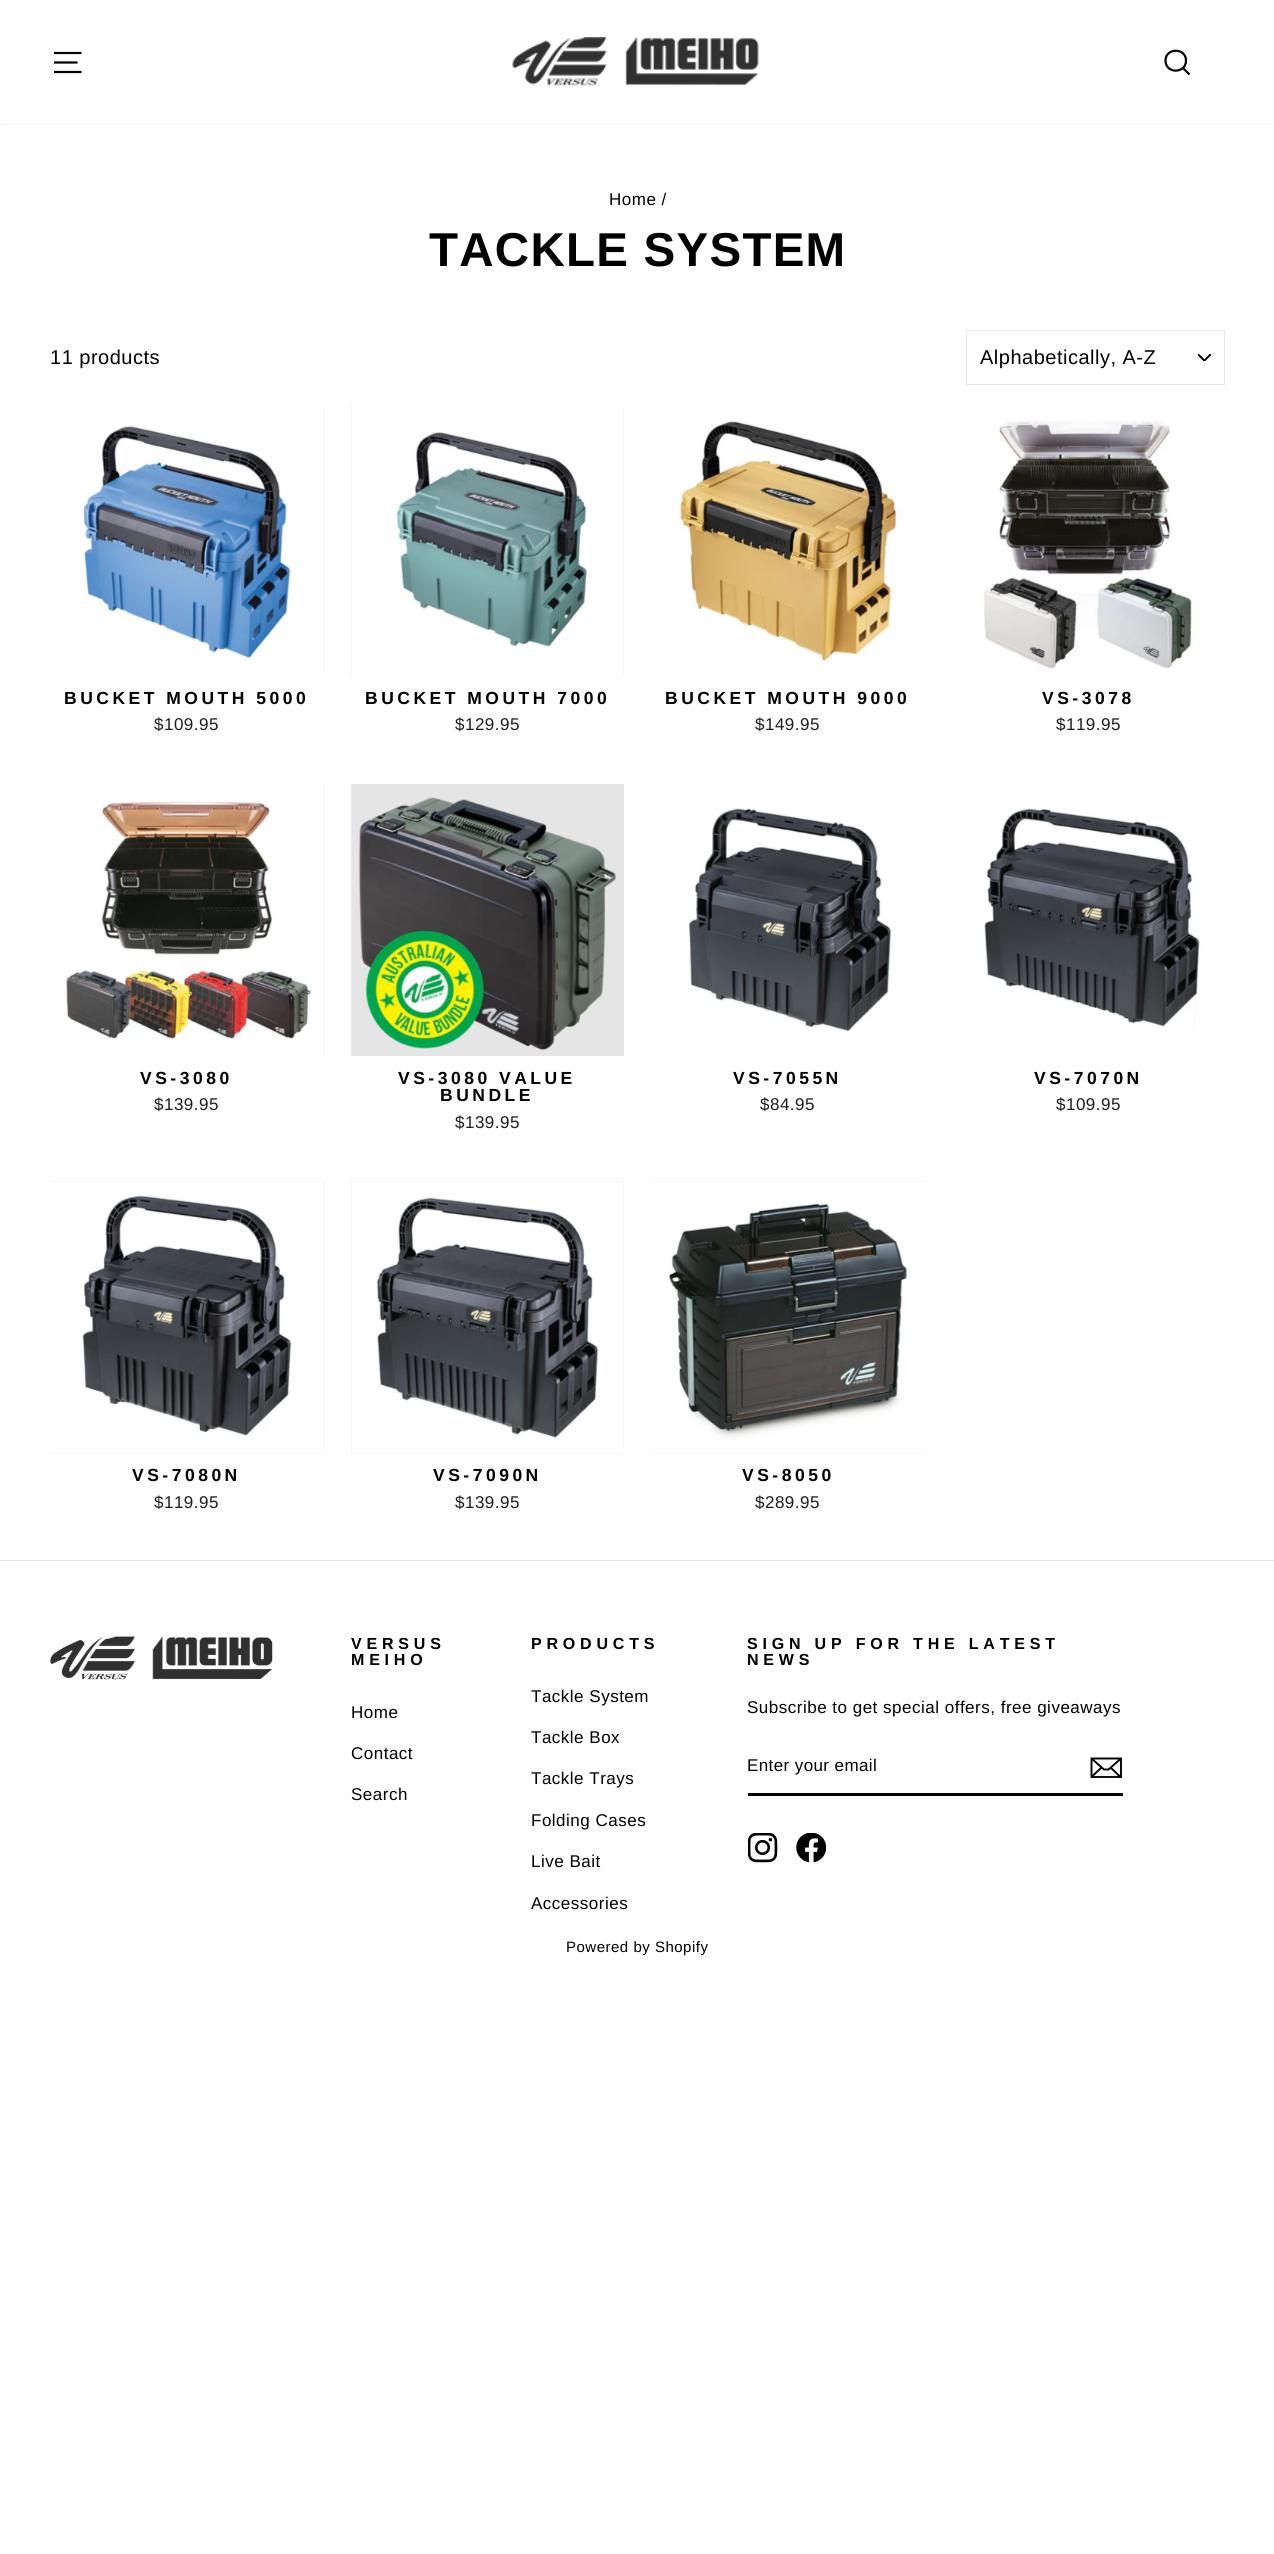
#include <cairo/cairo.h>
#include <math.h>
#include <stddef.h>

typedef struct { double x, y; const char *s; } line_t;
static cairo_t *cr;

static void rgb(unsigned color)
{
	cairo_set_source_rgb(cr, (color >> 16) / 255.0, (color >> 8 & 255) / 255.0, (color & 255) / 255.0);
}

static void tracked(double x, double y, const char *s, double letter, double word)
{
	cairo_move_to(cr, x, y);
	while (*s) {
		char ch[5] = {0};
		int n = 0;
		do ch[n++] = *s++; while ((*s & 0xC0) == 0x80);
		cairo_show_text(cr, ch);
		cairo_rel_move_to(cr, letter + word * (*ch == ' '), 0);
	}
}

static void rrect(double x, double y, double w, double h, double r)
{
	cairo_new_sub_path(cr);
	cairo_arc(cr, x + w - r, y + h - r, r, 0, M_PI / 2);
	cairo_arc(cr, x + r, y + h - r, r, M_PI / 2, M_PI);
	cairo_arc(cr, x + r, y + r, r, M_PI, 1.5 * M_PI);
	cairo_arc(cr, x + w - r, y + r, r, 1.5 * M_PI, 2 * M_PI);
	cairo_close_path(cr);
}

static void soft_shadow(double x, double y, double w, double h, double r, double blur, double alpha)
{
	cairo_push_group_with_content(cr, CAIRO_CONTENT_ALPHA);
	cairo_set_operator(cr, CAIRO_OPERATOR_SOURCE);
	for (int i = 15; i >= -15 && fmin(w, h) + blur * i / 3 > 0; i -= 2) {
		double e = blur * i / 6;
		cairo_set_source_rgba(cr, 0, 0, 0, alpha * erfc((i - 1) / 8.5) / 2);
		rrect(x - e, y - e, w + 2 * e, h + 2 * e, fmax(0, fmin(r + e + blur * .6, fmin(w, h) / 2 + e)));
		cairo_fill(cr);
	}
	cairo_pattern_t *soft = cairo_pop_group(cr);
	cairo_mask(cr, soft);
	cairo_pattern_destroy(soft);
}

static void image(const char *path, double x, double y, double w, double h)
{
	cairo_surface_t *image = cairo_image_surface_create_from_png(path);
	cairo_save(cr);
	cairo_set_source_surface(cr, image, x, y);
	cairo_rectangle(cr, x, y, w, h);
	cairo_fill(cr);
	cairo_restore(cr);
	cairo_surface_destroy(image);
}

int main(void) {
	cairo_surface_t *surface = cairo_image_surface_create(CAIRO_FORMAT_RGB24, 1274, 2554);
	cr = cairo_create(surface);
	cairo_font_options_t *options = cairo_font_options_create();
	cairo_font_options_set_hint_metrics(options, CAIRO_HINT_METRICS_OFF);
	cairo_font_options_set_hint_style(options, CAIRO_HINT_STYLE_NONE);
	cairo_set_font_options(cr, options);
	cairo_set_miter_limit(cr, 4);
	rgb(0xffffff);
	cairo_paint(cr);
	rgb(0x000000);
	soft_shadow(0, 0, 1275, 124, 0, 0.5, 0.2);
	rgb(0xffffff);
	cairo_rectangle(cr, 0, 0, 1274, 124);
	cairo_fill(cr);
	cairo_new_path(cr);
	cairo_move_to(cr, 54, 53);
	cairo_line_to(cr, 81.5, 53);
	cairo_move_to(cr, 54, 62.5);
	cairo_line_to(cr, 77.5, 62.5);
	cairo_move_to(cr, 54, 72);
	cairo_line_to(cr, 81.5, 72);
	rgb(0x000000);
	cairo_set_line_width(cr, 2.2);
	cairo_stroke(cr);
	image("img/1.png", 512, 37, 247, 49);
	cairo_new_path(cr);
	cairo_move_to(cr, 1186, 60.5);
	cairo_curve_to(cr, 1186, 74, 1165.5, 74, 1165.5, 60.5);
	cairo_curve_to(cr, 1165.5, 47.5, 1186, 47.5, 1186, 60.5);
	cairo_close_path(cr);
	cairo_move_to(cr, 1189.5, 74.5);
	cairo_line_to(cr, 1183, 68);
	cairo_stroke(cr);
	image("img/2.png", 1198, 354, 13, 7);
	cairo_rectangle(cr, 966.5, 330.5, 258, 54);
	rgb(0xe8e8e1);
	cairo_set_line_width(cr, 1);
	cairo_stroke(cr);
	rgb(0xe5e5e5);
	cairo_rectangle(cr, 50, 404, 274, 272);
	cairo_fill(cr);
	image("img/3.png", 50, 404, 274, 272);
	cairo_rectangle(cr, 351, 404, 273, 272);
	cairo_fill(cr);
	image("img/4.png", 351, 404, 273, 272);
	image("img/5.png", 651, 404, 274, 272);
	image("img/6.png", 953, 404, 272, 272);
	cairo_rectangle(cr, 50, 784, 274, 272);
	cairo_fill(cr);
	image("img/7.png", 50, 784, 274, 272);
	cairo_rectangle(cr, 351, 784, 273, 272);
	cairo_fill(cr);
	image("img/8.png", 358, 797, 259, 253);
	image("img/9.png", 651, 784, 274, 272);
	image("img/10.png", 953, 784, 272, 272);
	cairo_rectangle(cr, 50, 1181, 274, 273);
	cairo_fill(cr);
	image("img/11.png", 50, 1181, 274, 273);
	cairo_rectangle(cr, 351, 1181, 273, 273);
	cairo_fill(cr);
	image("img/12.png", 351, 1181, 273, 273);
	cairo_rectangle(cr, 651, 1181, 274, 273);
	cairo_fill(cr);
	image("img/13.png", 651, 1181, 274, 273);
	rgb(0xe8e8e1);
	cairo_rectangle(cr, 0, 1560, 1274, 1);
	cairo_fill(cr);
	image("img/14.png", 50, 1636, 223, 44);
	rgb(0x000000);
	cairo_rectangle(cr, 748, 1793, 375, 3);
	cairo_fill(cr);
	cairo_new_path(cr);
	cairo_move_to(cr, 1121, 1777);
	cairo_line_to(cr, 1091.5, 1777);
	cairo_line_to(cr, 1091.5, 1758.5);
	cairo_line_to(cr, 1121, 1758.5);
	cairo_close_path(cr);
	cairo_move_to(cr, 1091.5, 1758.5);
	cairo_line_to(cr, 1104, 1769.5);
	cairo_line_to(cr, 1108.5, 1769.5);
	cairo_line_to(cr, 1121, 1758.5);
	cairo_move_to(cr, 1101.5, 1767.5);
	cairo_line_to(cr, 1092, 1776.5);
	cairo_move_to(cr, 1120.5, 1777);
	cairo_line_to(cr, 1110.5, 1767.5);
	cairo_set_line_width(cr, 1.9);
	cairo_stroke(cr);
	image("img/15.png", 748, 1833, 30, 30);
	image("img/16.png", 796, 1833, 30, 30);
	cairo_select_font_face(cr, "Arimo", CAIRO_FONT_SLANT_NORMAL, CAIRO_FONT_WEIGHT_NORMAL);
	cairo_set_font_size(cr, 17);
	tracked(609, 205, "Home /", 0.5, 0);
	cairo_select_font_face(cr, "Arimo", CAIRO_FONT_SLANT_NORMAL, CAIRO_FONT_WEIGHT_BOLD);
	cairo_set_font_size(cr, 47.5);
	tracked(429, 266, "TACKLE SYSTEM", 1.25, 0);
	cairo_select_font_face(cr, "Arimo", CAIRO_FONT_SLANT_NORMAL, CAIRO_FONT_WEIGHT_NORMAL);
	cairo_set_font_size(cr, 20);
	tracked(50, 364, "11 products", 0.5, 0);
	tracked(980, 364, "Alphabetically, A-Z", 0.5, 0);
	cairo_select_font_face(cr, "Arimo", CAIRO_FONT_SLANT_NORMAL, CAIRO_FONT_WEIGHT_BOLD);
	cairo_set_font_size(cr, 17.5);
	tracked(64, 704, "BUCKET MOUTH 5000", 3.5, 0);
	cairo_select_font_face(cr, "Arimo", CAIRO_FONT_SLANT_NORMAL, CAIRO_FONT_WEIGHT_NORMAL);
	cairo_set_font_size(cr, 17);
	rgb(0x1c1d1d);
	tracked(154, 730, "$109.95", 0.5, 0);
	cairo_select_font_face(cr, "Arimo", CAIRO_FONT_SLANT_NORMAL, CAIRO_FONT_WEIGHT_BOLD);
	cairo_set_font_size(cr, 17.5);
	rgb(0x000000);
	tracked(365, 704, "BUCKET MOUTH 7000", 3.5, 0);
	cairo_select_font_face(cr, "Arimo", CAIRO_FONT_SLANT_NORMAL, CAIRO_FONT_WEIGHT_NORMAL);
	cairo_set_font_size(cr, 17);
	rgb(0x1c1d1d);
	tracked(455, 730, "$129.95", 0.5, 0);
	cairo_select_font_face(cr, "Arimo", CAIRO_FONT_SLANT_NORMAL, CAIRO_FONT_WEIGHT_BOLD);
	cairo_set_font_size(cr, 17.5);
	rgb(0x000000);
	tracked(665, 704, "BUCKET MOUTH 9000", 3.5, 0);
	cairo_select_font_face(cr, "Arimo", CAIRO_FONT_SLANT_NORMAL, CAIRO_FONT_WEIGHT_NORMAL);
	cairo_set_font_size(cr, 17);
	rgb(0x1c1d1d);
	tracked(755, 730, "$149.95", 0.5, 0);
	cairo_select_font_face(cr, "Arimo", CAIRO_FONT_SLANT_NORMAL, CAIRO_FONT_WEIGHT_BOLD);
	cairo_set_font_size(cr, 17.5);
	rgb(0x000000);
	tracked(1042, 704, "VS-3078", 3.5, 0);
	cairo_select_font_face(cr, "Arimo", CAIRO_FONT_SLANT_NORMAL, CAIRO_FONT_WEIGHT_NORMAL);
	cairo_set_font_size(cr, 17);
	rgb(0x1c1d1d);
	tracked(1056, 730, "$119.95", 0.5, 0);
	cairo_select_font_face(cr, "Arimo", CAIRO_FONT_SLANT_NORMAL, CAIRO_FONT_WEIGHT_BOLD);
	cairo_set_font_size(cr, 17.5);
	rgb(0x000000);
	tracked(140, 1084, "VS-3080", 3.5, 0);
	cairo_select_font_face(cr, "Arimo", CAIRO_FONT_SLANT_NORMAL, CAIRO_FONT_WEIGHT_NORMAL);
	cairo_set_font_size(cr, 17);
	rgb(0x1c1d1d);
	tracked(154, 1110, "$139.95", 0.5, 0);
	cairo_select_font_face(cr, "Arimo", CAIRO_FONT_SLANT_NORMAL, CAIRO_FONT_WEIGHT_BOLD);
	cairo_set_font_size(cr, 17.5);
	rgb(0x000000);
	tracked(398, 1084, "VS-3080 VALUE", 3.5, 0);
	tracked(440, 1101, "BUNDLE", 3.5, 0);
	cairo_select_font_face(cr, "Arimo", CAIRO_FONT_SLANT_NORMAL, CAIRO_FONT_WEIGHT_NORMAL);
	cairo_set_font_size(cr, 17);
	rgb(0x1c1d1d);
	tracked(455, 1128, "$139.95", 0.5, 0);
	cairo_select_font_face(cr, "Arimo", CAIRO_FONT_SLANT_NORMAL, CAIRO_FONT_WEIGHT_BOLD);
	cairo_set_font_size(cr, 17.5);
	rgb(0x000000);
	tracked(733, 1084, "VS-7055N", 3.5, 0);
	cairo_select_font_face(cr, "Arimo", CAIRO_FONT_SLANT_NORMAL, CAIRO_FONT_WEIGHT_NORMAL);
	cairo_set_font_size(cr, 17);
	rgb(0x1c1d1d);
	tracked(760, 1110, "$84.95", 0.5, 0);
	cairo_select_font_face(cr, "Arimo", CAIRO_FONT_SLANT_NORMAL, CAIRO_FONT_WEIGHT_BOLD);
	cairo_set_font_size(cr, 17.5);
	rgb(0x000000);
	tracked(1034, 1084, "VS-7070N", 3.5, 0);
	cairo_select_font_face(cr, "Arimo", CAIRO_FONT_SLANT_NORMAL, CAIRO_FONT_WEIGHT_NORMAL);
	cairo_set_font_size(cr, 17);
	rgb(0x1c1d1d);
	tracked(1056, 1110, "$109.95", 0.5, 0);
	cairo_select_font_face(cr, "Arimo", CAIRO_FONT_SLANT_NORMAL, CAIRO_FONT_WEIGHT_BOLD);
	cairo_set_font_size(cr, 17.5);
	rgb(0x000000);
	tracked(132, 1481, "VS-7080N", 3.5, 0);
	cairo_select_font_face(cr, "Arimo", CAIRO_FONT_SLANT_NORMAL, CAIRO_FONT_WEIGHT_NORMAL);
	cairo_set_font_size(cr, 17);
	rgb(0x1c1d1d);
	tracked(154, 1508, "$119.95", 0.5, 0);
	cairo_select_font_face(cr, "Arimo", CAIRO_FONT_SLANT_NORMAL, CAIRO_FONT_WEIGHT_BOLD);
	cairo_set_font_size(cr, 17.5);
	rgb(0x000000);
	tracked(433, 1481, "VS-7090N", 3.5, 0);
	cairo_select_font_face(cr, "Arimo", CAIRO_FONT_SLANT_NORMAL, CAIRO_FONT_WEIGHT_NORMAL);
	cairo_set_font_size(cr, 17);
	rgb(0x1c1d1d);
	tracked(455, 1508, "$139.95", 0.5, 0);
	cairo_select_font_face(cr, "Arimo", CAIRO_FONT_SLANT_NORMAL, CAIRO_FONT_WEIGHT_BOLD);
	cairo_set_font_size(cr, 17.5);
	rgb(0x000000);
	tracked(742, 1481, "VS-8050", 3.5, 0);
	cairo_select_font_face(cr, "Arimo", CAIRO_FONT_SLANT_NORMAL, CAIRO_FONT_WEIGHT_NORMAL);
	cairo_set_font_size(cr, 17);
	rgb(0x1c1d1d);
	tracked(755, 1508, "$289.95", 0.5, 0);
	cairo_select_font_face(cr, "Arimo", CAIRO_FONT_SLANT_NORMAL, CAIRO_FONT_WEIGHT_BOLD);
	cairo_set_font_size(cr, 16);
	rgb(0x000000);
	tracked(351, 1649, "VERSUS", 4.8, 0);
	tracked(351, 1665, "MEIHO", 4.8, 0);
	cairo_select_font_face(cr, "Arimo", CAIRO_FONT_SLANT_NORMAL, CAIRO_FONT_WEIGHT_NORMAL);
	cairo_set_font_size(cr, 17);
	{
		static const line_t items[] = {
			{351, 1718, "Home"},
			{351, 1759, "Contact"},
			{351, 1800, "Search"},
		};
		for (size_t i = 0; i < sizeof items / sizeof *items; i++) {
			tracked(items[i].x, items[i].y, items[i].s, 0.5, 0);
		}
	}
	cairo_select_font_face(cr, "Arimo", CAIRO_FONT_SLANT_NORMAL, CAIRO_FONT_WEIGHT_BOLD);
	cairo_set_font_size(cr, 16);
	tracked(531, 1649, "PRODUCTS", 4.8, 0);
	cairo_select_font_face(cr, "Arimo", CAIRO_FONT_SLANT_NORMAL, CAIRO_FONT_WEIGHT_NORMAL);
	cairo_set_font_size(cr, 17);
	{
		static const line_t items[] = {
			{531, 1702, "Tackle System"},
			{531, 1743, "Tackle Box"},
			{531, 1784, "Tackle Trays"},
			{531, 1826, "Folding Cases"},
			{531, 1867, "Live Bait"},
			{531, 1909, "Accessories"},
		};
		for (size_t i = 0; i < sizeof items / sizeof *items; i++) {
			tracked(items[i].x, items[i].y, items[i].s, 0.5, 0);
		}
	}
	cairo_select_font_face(cr, "Arimo", CAIRO_FONT_SLANT_NORMAL, CAIRO_FONT_WEIGHT_BOLD);
	cairo_set_font_size(cr, 16);
	tracked(747, 1649, "SIGN UP FOR THE LATEST", 4.8, 0);
	tracked(747, 1665, "NEWS", 4.8, 0);
	cairo_select_font_face(cr, "Arimo", CAIRO_FONT_SLANT_NORMAL, CAIRO_FONT_WEIGHT_NORMAL);
	cairo_set_font_size(cr, 17);
	tracked(747, 1713, "Subscribe to get special offers, free giveaways", 0.5, 0);
	tracked(747, 1771, "Enter your email", 0.4, 0);
	cairo_set_font_size(cr, 15);
	tracked(566, 1952, "Powered by Shopify", 0.5, 0);
	cairo_surface_write_to_png(surface, "page.png");
	cairo_font_options_destroy(options);
	cairo_destroy(cr);
	cairo_surface_destroy(surface);
	return 0;
}
